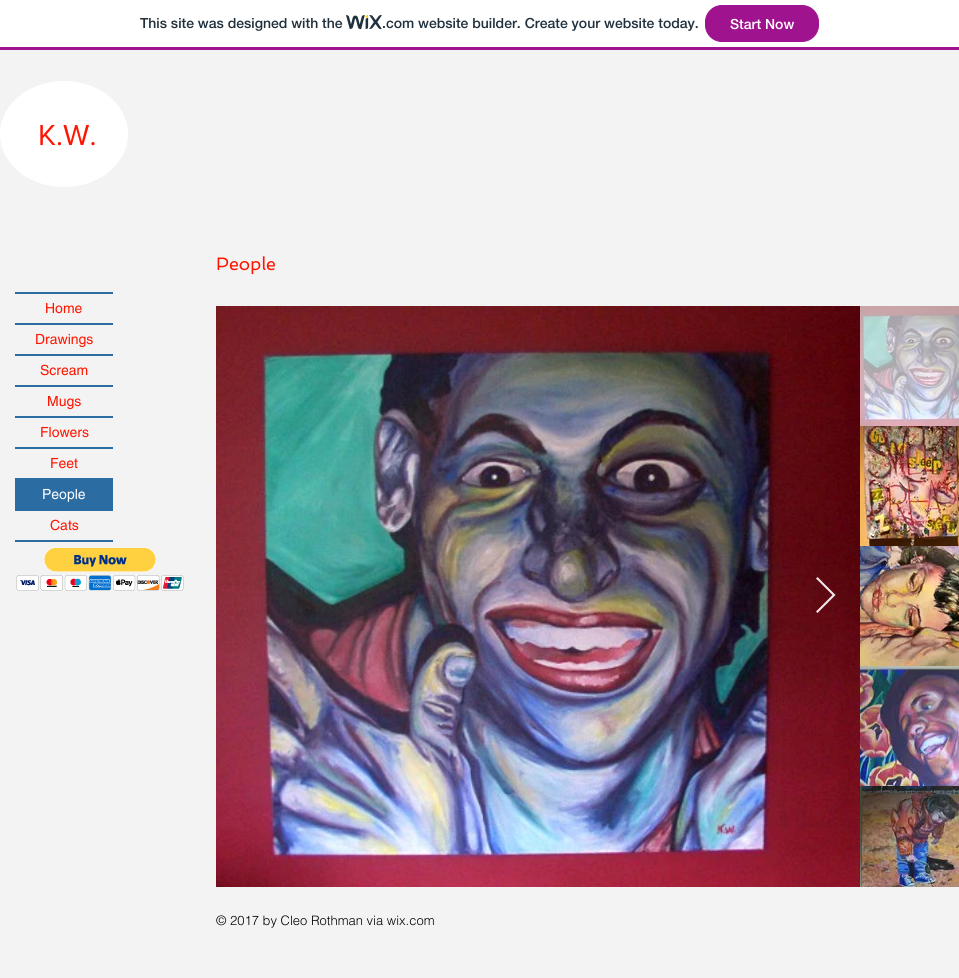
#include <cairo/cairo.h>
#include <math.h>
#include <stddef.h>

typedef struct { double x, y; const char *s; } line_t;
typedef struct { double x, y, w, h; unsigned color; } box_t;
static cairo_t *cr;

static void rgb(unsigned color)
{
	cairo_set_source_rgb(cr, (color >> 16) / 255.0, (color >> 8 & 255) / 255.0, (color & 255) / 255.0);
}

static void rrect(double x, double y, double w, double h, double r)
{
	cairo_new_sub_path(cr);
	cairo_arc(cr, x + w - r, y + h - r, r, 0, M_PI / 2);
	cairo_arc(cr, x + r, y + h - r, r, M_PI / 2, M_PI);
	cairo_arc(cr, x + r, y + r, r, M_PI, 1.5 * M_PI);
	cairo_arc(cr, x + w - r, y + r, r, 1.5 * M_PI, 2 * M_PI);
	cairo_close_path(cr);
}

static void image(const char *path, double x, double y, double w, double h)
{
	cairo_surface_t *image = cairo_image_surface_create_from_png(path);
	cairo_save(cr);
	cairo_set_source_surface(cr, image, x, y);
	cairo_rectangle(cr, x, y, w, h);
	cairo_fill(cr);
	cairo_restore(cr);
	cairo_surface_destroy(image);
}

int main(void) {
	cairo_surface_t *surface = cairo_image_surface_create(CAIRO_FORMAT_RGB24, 959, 978);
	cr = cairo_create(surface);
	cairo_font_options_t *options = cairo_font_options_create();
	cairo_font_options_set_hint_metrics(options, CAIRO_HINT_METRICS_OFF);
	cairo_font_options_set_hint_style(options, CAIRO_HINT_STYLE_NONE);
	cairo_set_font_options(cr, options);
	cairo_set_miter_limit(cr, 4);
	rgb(0xffffff);
	cairo_paint(cr);
	rgb(0xa0138e);
	cairo_rectangle(cr, 0, 47, 959, 3);
	cairo_fill(cr);
	image("img/1.png", 346, 15, 36, 15);
	rrect(705.5, 5.5, 113, 36, 16.5);
	cairo_fill_preserve(cr);
	cairo_set_line_width(cr, 1);
	cairo_stroke(cr);
	rgb(0xf3f3f3);
	cairo_rectangle(cr, 0, 50, 959, 928);
	cairo_fill(cr);
	rgb(0xffffff);
	cairo_new_path(cr);
	cairo_move_to(cr, 64, 81);
	cairo_curve_to(cr, 99.5, 81, 128, 104.5, 128, 134);
	cairo_curve_to(cr, 128, 163.5, 99.5, 187, 64, 187);
	cairo_curve_to(cr, 28.5, 187, 0, 163.5, 0, 134);
	cairo_curve_to(cr, 0, 104.5, 28.5, 81, 64, 81);
	cairo_close_path(cr);
	cairo_fill(cr);
	image("img/2.png", 16, 548, 168, 43);
	image("img/3.png", 216, 306, 644, 581);
	cairo_set_source_rgba(cr, 1, 1, 1, 0.9);
	cairo_new_path(cr);
	cairo_move_to(cr, 816, 578.5);
	cairo_line_to(cr, 817.5, 577);
	cairo_line_to(cr, 835.5, 595);
	cairo_line_to(cr, 817.5, 613);
	cairo_line_to(cr, 816, 611.5);
	cairo_line_to(cr, 832.5, 595);
	cairo_close_path(cr);
	cairo_fill(cr);
	image("img/4.png", 860, 306, 99, 120);
	image("img/5.png", 860, 426, 99, 120);
	image("img/6.png", 860, 546, 99, 120);
	image("img/7.png", 860, 666, 99, 120);
	image("img/8.png", 860, 786, 99, 101);
	{
		static const box_t items[] = {
			{15, 292, 98, 2, 0x2b6ca3},
			{15, 540, 98, 2, 0x2b6ca3},
			{15, 323, 98, 2, 0x2b6ca3},
			{15, 354, 98, 2, 0x2b6ca3},
			{15, 385, 98, 2, 0x2b6ca3},
			{15, 416, 98, 2, 0x2b6ca3},
			{15, 447, 98, 2, 0x2b6ca3},
			{15, 478, 98, 2, 0x2b6ca3},
			{15, 480, 98, 31, 0x2b6ca3},
		};
		for (size_t i = 0; i < sizeof items / sizeof *items; i++) {
			rgb(items[i].color);
			cairo_rectangle(cr, items[i].x, items[i].y, items[i].w, items[i].h);
			cairo_fill(cr);
		}
	}
	cairo_select_font_face(cr, "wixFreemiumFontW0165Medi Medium", CAIRO_FONT_SLANT_NORMAL, CAIRO_FONT_WEIGHT_NORMAL);
	cairo_set_font_size(cr, 14);
	rgb(0x20303c);
	cairo_move_to(cr, 140, 28);
	cairo_show_text(cr, "This site was designed with the");
	cairo_move_to(cr, 382, 28);
	cairo_show_text(cr, ".com website builder. Create your website today.");
	rgb(0xffffff);
	cairo_move_to(cr, 730, 29);
	cairo_show_text(cr, "Start Now");
	cairo_select_font_face(cr, "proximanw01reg", CAIRO_FONT_SLANT_NORMAL, CAIRO_FONT_WEIGHT_NORMAL);
	cairo_set_font_size(cr, 30);
	rgb(0xff1500);
	cairo_move_to(cr, 38, 145);
	cairo_show_text(cr, "K.W.");
	cairo_select_font_face(cr, "Spinnaker", CAIRO_FONT_SLANT_NORMAL, CAIRO_FONT_WEIGHT_NORMAL);
	cairo_set_font_size(cr, 18);
	cairo_move_to(cr, 216, 270);
	cairo_show_text(cr, "People");
	cairo_select_font_face(cr, "helvetica", CAIRO_FONT_SLANT_NORMAL, CAIRO_FONT_WEIGHT_NORMAL);
	cairo_set_font_size(cr, 14);
	{
		static const line_t items[] = {
			{45, 313, "Home"},
			{35, 344, "Drawings"},
			{40, 375, "Scream"},
			{47, 406, "Mugs"},
			{40, 437, "Flowers"},
			{50, 468, "Feet"},
		};
		for (size_t i = 0; i < sizeof items / sizeof *items; i++) {
			cairo_move_to(cr, items[i].x, items[i].y);
			cairo_show_text(cr, items[i].s);
		}
	}
	rgb(0xffffff);
	cairo_move_to(cr, 42, 499);
	cairo_show_text(cr, "People");
	rgb(0xff1500);
	cairo_move_to(cr, 50, 530);
	cairo_show_text(cr, "Cats");
	cairo_select_font_face(cr, "helvetica Light", CAIRO_FONT_SLANT_NORMAL, CAIRO_FONT_WEIGHT_NORMAL);
	cairo_set_font_size(cr, 13);
	rgb(0x000000);
	cairo_move_to(cr, 216, 925);
	cairo_show_text(cr, "© 2017 by Cleo Rothman via wix.com");
	cairo_surface_write_to_png(surface, "page.png");
	cairo_font_options_destroy(options);
	cairo_destroy(cr);
	cairo_surface_destroy(surface);
	return 0;
}
